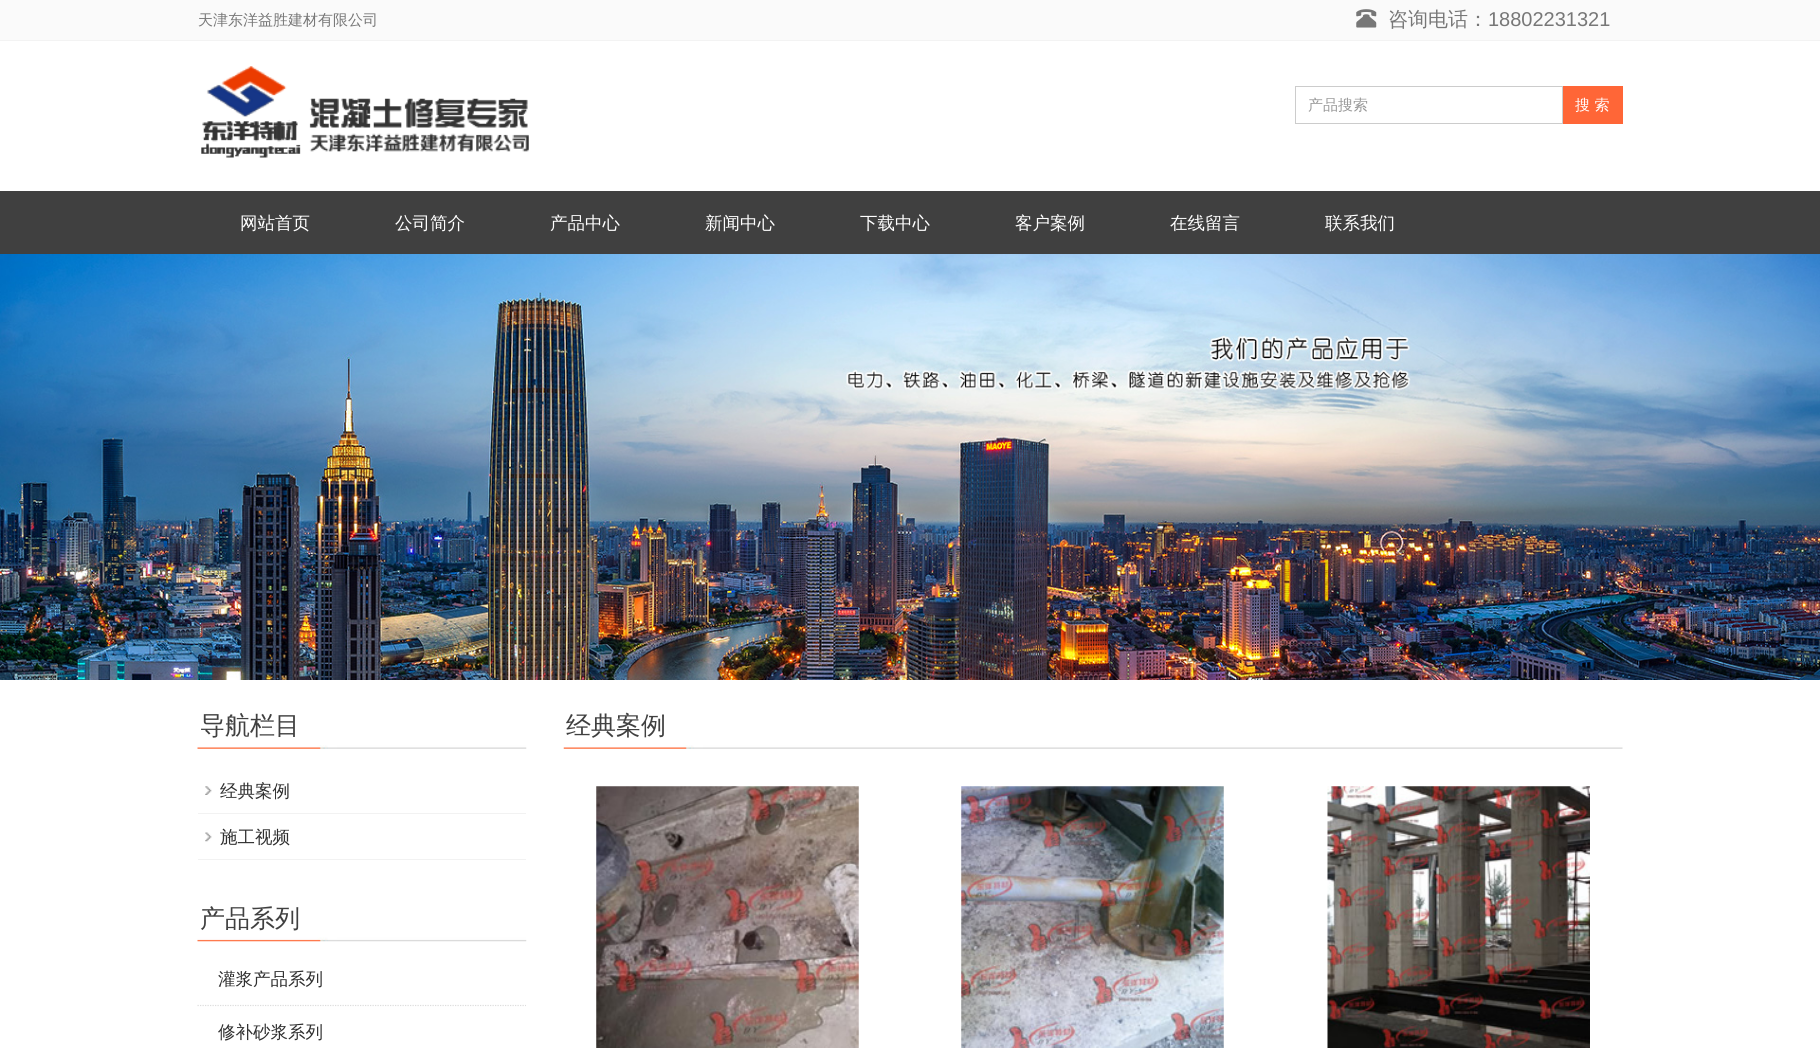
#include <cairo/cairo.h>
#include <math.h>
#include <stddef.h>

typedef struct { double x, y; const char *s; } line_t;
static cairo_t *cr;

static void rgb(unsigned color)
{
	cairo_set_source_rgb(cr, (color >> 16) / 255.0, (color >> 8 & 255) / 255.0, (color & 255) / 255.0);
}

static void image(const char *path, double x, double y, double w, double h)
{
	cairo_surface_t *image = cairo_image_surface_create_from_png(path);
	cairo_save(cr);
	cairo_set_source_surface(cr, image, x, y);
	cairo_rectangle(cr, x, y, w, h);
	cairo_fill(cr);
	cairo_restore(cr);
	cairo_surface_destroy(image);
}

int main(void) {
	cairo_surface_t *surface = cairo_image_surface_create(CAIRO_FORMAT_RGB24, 1820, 1048);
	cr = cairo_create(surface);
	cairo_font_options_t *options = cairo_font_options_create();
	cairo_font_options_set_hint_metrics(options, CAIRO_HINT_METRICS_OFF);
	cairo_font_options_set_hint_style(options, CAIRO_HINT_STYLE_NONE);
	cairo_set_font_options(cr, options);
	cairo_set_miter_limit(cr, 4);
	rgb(0xffffff);
	cairo_paint(cr);
	rgb(0xfafafa);
	cairo_rectangle(cr, 0, 0, 1820, 40);
	cairo_fill(cr);
	rgb(0xf3f3f3);
	cairo_rectangle(cr, 0, 40, 1820, 1);
	cairo_fill(cr);
	image("img/1.png", 1356, 9, 21, 19);
	image("img/2.png", 201, 66, 328, 92);
	cairo_rectangle(cr, 1295.5, 86.5, 267, 37);
	rgb(0xcccccc);
	cairo_set_line_width(cr, 1);
	cairo_stroke(cr);
	rgb(0xff6637);
	cairo_rectangle(cr, 1563, 86, 60, 38);
	cairo_fill(cr);
	rgb(0x404040);
	cairo_rectangle(cr, 0, 191, 1820, 63);
	cairo_fill(cr);
	image("img/3.png", 0, 254, 1820, 426);
	image("img/4.png", 197, 745, 330, 4);
	image("img/5.png", 205, 786, 7, 9);
	rgb(0xf2f2f2);
	cairo_rectangle(cr, 198, 813, 328, 1);
	cairo_fill(cr);
	image("img/6.png", 205, 832, 7, 10);
	cairo_rectangle(cr, 198, 859, 328, 1);
	cairo_fill(cr);
	image("img/7.png", 197, 937, 330, 5);
	cairo_new_path(cr);
	cairo_move_to(cr, 197.5, 1005.5);
	cairo_line_to(cr, 526, 1005.5);
	rgb(0xdddddd);
	cairo_set_line_width(cr, 1.2);
	cairo_set_dash(cr, (double[]){1.25, 1.25}, 2, 0);
	cairo_stroke(cr);
	image("img/8.png", 563, 745, 1060, 4);
	image("img/9.png", 596, 786, 263, 262);
	image("img/10.png", 961, 786, 263, 262);
	image("img/11.png", 1327, 786, 263, 262);
	cairo_select_font_face(cr, "WenQuanYi Zen Hei Medium", CAIRO_FONT_SLANT_NORMAL, CAIRO_FONT_WEIGHT_NORMAL);
	cairo_set_font_size(cr, 15);
	rgb(0x777777);
	cairo_move_to(cr, 198, 25);
	cairo_show_text(cr, "天津东洋益胜建材有限公司");
	cairo_set_font_size(cr, 20);
	cairo_move_to(cr, 1388, 26);
	cairo_show_text(cr, "咨询电话：");
	cairo_select_font_face(cr, "Liberation Sans", CAIRO_FONT_SLANT_NORMAL, CAIRO_FONT_WEIGHT_NORMAL);
	cairo_move_to(cr, 1488, 26);
	cairo_show_text(cr, "18802231321");
	cairo_select_font_face(cr, "WenQuanYi Zen Hei Medium", CAIRO_FONT_SLANT_NORMAL, CAIRO_FONT_WEIGHT_NORMAL);
	cairo_set_font_size(cr, 15);
	rgb(0x999999);
	cairo_move_to(cr, 1308, 110);
	cairo_show_text(cr, "产品搜索");
	rgb(0xffffff);
	cairo_move_to(cr, 1575, 110);
	cairo_show_text(cr, "搜 索");
	cairo_set_font_size(cr, 17.5);
	{
		static const line_t items[] = {
			{240, 229, "网站首页"},
			{395, 229, "公司简介"},
			{550, 229, "产品中心"},
			{705, 229, "新闻中心"},
			{860, 229, "下载中心"},
			{1015, 229, "客户案例"},
			{1170, 229, "在线留言"},
			{1325, 229, "联系我们"},
		};
		for (size_t i = 0; i < sizeof items / sizeof *items; i++) {
			cairo_move_to(cr, items[i].x, items[i].y);
			cairo_show_text(cr, items[i].s);
		}
	}
	cairo_set_font_size(cr, 25);
	rgb(0x404040);
	cairo_move_to(cr, 200, 734);
	cairo_show_text(cr, "导航栏目");
	cairo_set_font_size(cr, 17.5);
	rgb(0x2f2f2f);
	cairo_move_to(cr, 220, 797);
	cairo_show_text(cr, "经典案例");
	cairo_move_to(cr, 220, 843);
	cairo_show_text(cr, "施工视频");
	cairo_set_font_size(cr, 25);
	rgb(0x404040);
	cairo_move_to(cr, 200, 927);
	cairo_show_text(cr, "产品系列");
	cairo_set_font_size(cr, 17.5);
	rgb(0x2f2f2f);
	cairo_move_to(cr, 218, 985);
	cairo_show_text(cr, "灌浆产品系列");
	cairo_move_to(cr, 218, 1038);
	cairo_show_text(cr, "修补砂浆系列");
	cairo_set_font_size(cr, 25);
	rgb(0x404040);
	cairo_move_to(cr, 566, 734);
	cairo_show_text(cr, "经典案例");
	cairo_surface_write_to_png(surface, "page.png");
	cairo_font_options_destroy(options);
	cairo_destroy(cr);
	cairo_surface_destroy(surface);
	return 0;
}
